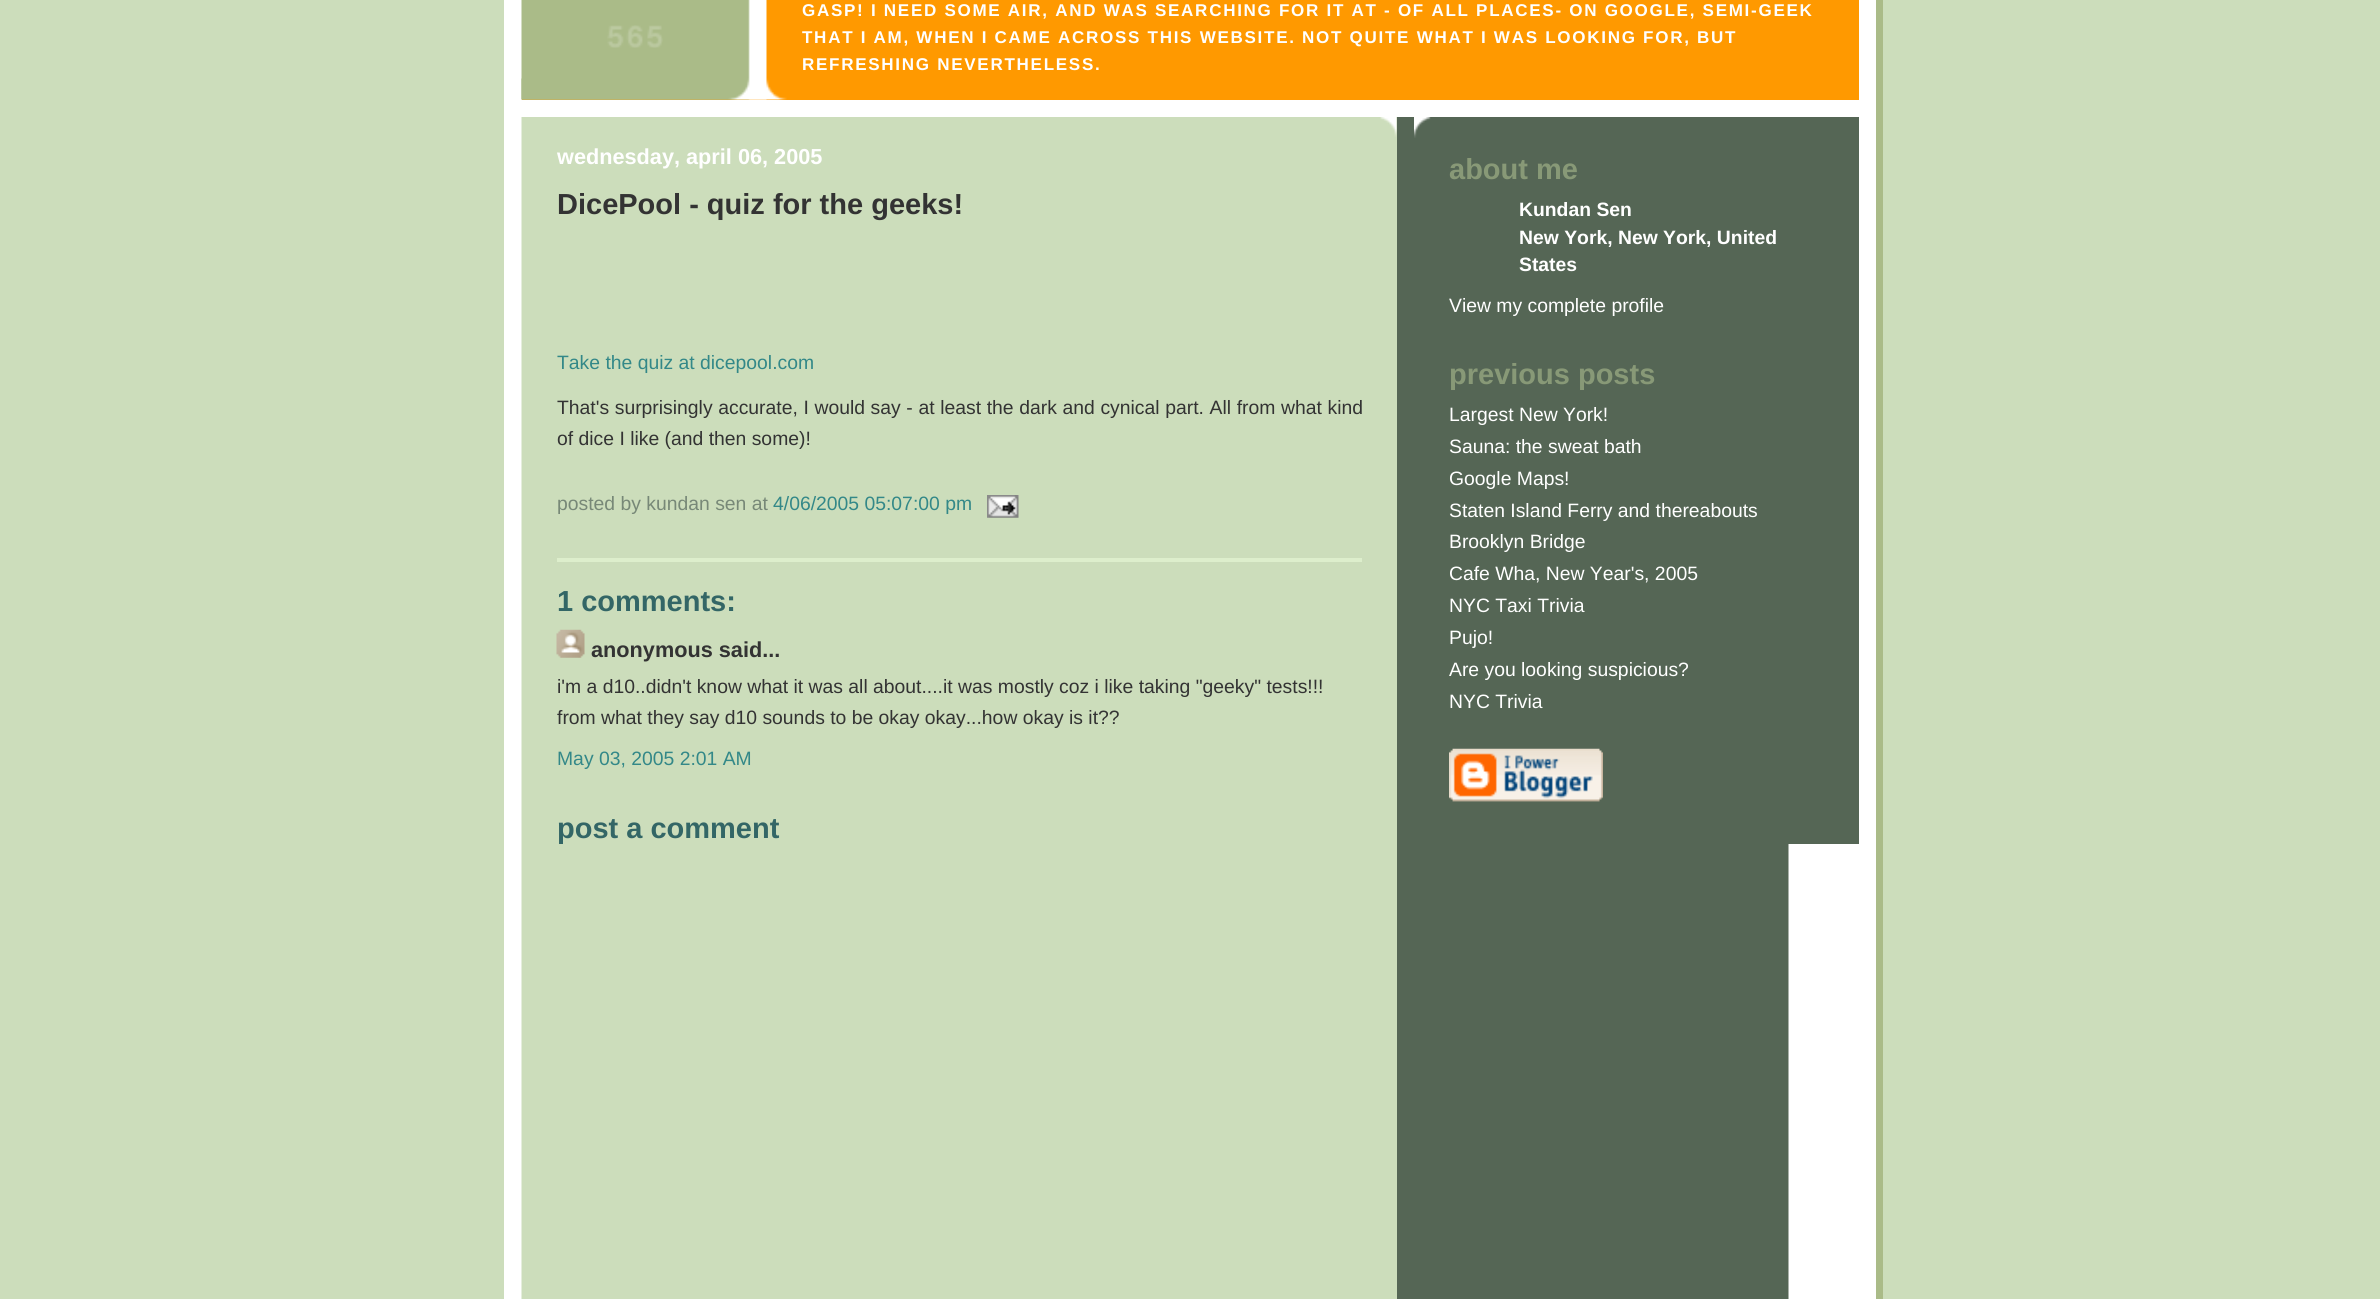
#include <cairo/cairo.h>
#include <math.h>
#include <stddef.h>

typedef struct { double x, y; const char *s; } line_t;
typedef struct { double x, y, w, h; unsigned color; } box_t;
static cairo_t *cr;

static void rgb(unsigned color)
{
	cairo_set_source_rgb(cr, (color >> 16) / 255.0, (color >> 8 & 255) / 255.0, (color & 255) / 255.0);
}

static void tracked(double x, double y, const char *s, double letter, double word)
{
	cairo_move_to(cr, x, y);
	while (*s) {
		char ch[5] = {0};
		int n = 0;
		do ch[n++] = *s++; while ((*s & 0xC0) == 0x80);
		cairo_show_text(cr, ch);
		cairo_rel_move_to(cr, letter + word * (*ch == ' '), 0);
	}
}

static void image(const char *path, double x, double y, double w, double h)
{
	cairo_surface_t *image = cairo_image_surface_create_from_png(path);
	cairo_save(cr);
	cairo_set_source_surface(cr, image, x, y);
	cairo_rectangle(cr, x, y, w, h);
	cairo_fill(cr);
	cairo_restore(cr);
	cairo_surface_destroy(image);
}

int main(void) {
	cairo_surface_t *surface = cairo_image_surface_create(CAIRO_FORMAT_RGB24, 2380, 1299);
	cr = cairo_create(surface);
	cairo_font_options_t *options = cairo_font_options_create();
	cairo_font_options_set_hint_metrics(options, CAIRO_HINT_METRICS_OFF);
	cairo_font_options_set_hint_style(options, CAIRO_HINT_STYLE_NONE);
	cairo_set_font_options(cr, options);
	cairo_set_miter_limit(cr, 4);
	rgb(0xccddbb);
	cairo_paint(cr);
	{
		static const box_t items[] = {
			{1876, 0, 7, 1299, 0xaabb88},
			{504, 0, 1372, 1299, 0xffffff},
			{522, 0, 1337, 100, 0xff9900},
		};
		for (size_t i = 0; i < sizeof items / sizeof *items; i++) {
			rgb(items[i].color);
			cairo_rectangle(cr, items[i].x, items[i].y, items[i].w, items[i].h);
			cairo_fill(cr);
		}
	}
	image("img/1.png", 521, 0, 246, 100);
	image("img/2.png", 521, 78, 266, 22);
	image("img/3.png", 607, 25, 56, 23);
	image("img/4.png", 521, 117, 1268, 1182);
	rgb(0xccddbb);
	cairo_rectangle(cr, 1326, 117, 71, 1182);
	cairo_fill(cr);
	image("img/5.png", 1380, 117, 17, 20);
	image("img/6.png", 987, 495, 32, 23);
	rgb(0xddeecc);
	cairo_rectangle(cr, 557, 558, 805, 4);
	cairo_fill(cr);
	image("img/7.png", 556, 629, 29, 29);
	rgb(0x556655);
	cairo_rectangle(cr, 1788, 117, 71, 727);
	cairo_fill(cr);
	image("img/8.png", 1414, 117, 17, 21);
	image("img/9.png", 1449, 748, 154, 54);
	cairo_select_font_face(cr, "Liberation Sans", CAIRO_FONT_SLANT_NORMAL, CAIRO_FONT_WEIGHT_BOLD);
	cairo_set_font_size(cr, 17.05);
	rgb(0xffffff);
	{
		static const line_t items[] = {
			{802, 16, "GASP! I NEED SOME AIR, AND WAS SEARCHING FOR IT AT - OF ALL PLACES- ON GOOGLE, SEMI-GEEK"},
			{802, 43, "THAT I AM, WHEN I CAME ACROSS THIS WEBSITE. NOT QUITE WHAT I WAS LOOKING FOR, BUT"},
			{802, 70, "REFRESHING NEVERTHELESS."},
		};
		for (size_t i = 0; i < sizeof items / sizeof *items; i++) {
			tracked(items[i].x, items[i].y, items[i].s, 1.7, 0);
		}
	}
	cairo_set_font_size(cr, 21.7);
	cairo_move_to(cr, 557, 164);
	cairo_show_text(cr, "wednesday, april 06, 2005");
	cairo_set_font_size(cr, 29);
	rgb(0x333333);
	cairo_move_to(cr, 557, 214);
	cairo_show_text(cr, "DicePool - quiz for the geeks!");
	cairo_select_font_face(cr, "Liberation Sans", CAIRO_FONT_SLANT_NORMAL, CAIRO_FONT_WEIGHT_NORMAL);
	cairo_set_font_size(cr, 19.35);
	rgb(0x338888);
	cairo_move_to(cr, 557, 369);
	cairo_show_text(cr, "Take the quiz at dicepool.com");
	rgb(0x333333);
	tracked(557, 414, "That's surprisingly accurate, I would say - at least the dark and cynical part. All from what kind", 0, 0.25);
	cairo_move_to(cr, 557, 445);
	cairo_show_text(cr, "of dice I like (and then some)!");
	rgb(0x778877);
	cairo_move_to(cr, 557, 510);
	cairo_show_text(cr, "posted by kundan sen at");
	rgb(0x338888);
	cairo_move_to(cr, 773, 510);
	cairo_show_text(cr, "4/06/2005 05:07:00 pm");
	cairo_select_font_face(cr, "Liberation Sans", CAIRO_FONT_SLANT_NORMAL, CAIRO_FONT_WEIGHT_BOLD);
	cairo_set_font_size(cr, 29);
	rgb(0x336666);
	cairo_move_to(cr, 557, 611);
	cairo_show_text(cr, "1 comments:");
	cairo_set_font_size(cr, 21.7);
	rgb(0x333333);
	cairo_move_to(cr, 591, 657);
	cairo_show_text(cr, "anonymous said...");
	cairo_select_font_face(cr, "Liberation Sans", CAIRO_FONT_SLANT_NORMAL, CAIRO_FONT_WEIGHT_NORMAL);
	cairo_set_font_size(cr, 19.35);
	cairo_move_to(cr, 557, 693);
	cairo_show_text(cr, "i'm a d10..didn't know what it was all about....it was mostly coz i like taking \"geeky\" tests!!!");
	cairo_move_to(cr, 557, 724);
	cairo_show_text(cr, "from what they say d10 sounds to be okay okay...how okay is it?\077");
	rgb(0x338888);
	cairo_move_to(cr, 557, 765);
	cairo_show_text(cr, "May 03, 2005 2:01 AM");
	cairo_select_font_face(cr, "Liberation Sans", CAIRO_FONT_SLANT_NORMAL, CAIRO_FONT_WEIGHT_BOLD);
	cairo_set_font_size(cr, 29);
	rgb(0x336666);
	cairo_move_to(cr, 557, 838);
	cairo_show_text(cr, "post a comment");
	rgb(0x889977);
	cairo_move_to(cr, 1449, 179);
	cairo_show_text(cr, "about me");
	cairo_set_font_size(cr, 19.35);
	rgb(0xffffff);
	{
		static const line_t items[] = {
			{1519, 216, "Kundan Sen"},
			{1519, 244, "New York, New York, United"},
			{1519, 271, "States"},
		};
		for (size_t i = 0; i < sizeof items / sizeof *items; i++) {
			cairo_move_to(cr, items[i].x, items[i].y);
			cairo_show_text(cr, items[i].s);
		}
	}
	cairo_select_font_face(cr, "Liberation Sans", CAIRO_FONT_SLANT_NORMAL, CAIRO_FONT_WEIGHT_NORMAL);
	cairo_move_to(cr, 1449, 312);
	cairo_show_text(cr, "View my complete profile");
	cairo_select_font_face(cr, "Liberation Sans", CAIRO_FONT_SLANT_NORMAL, CAIRO_FONT_WEIGHT_BOLD);
	cairo_set_font_size(cr, 29);
	rgb(0x889977);
	cairo_move_to(cr, 1449, 384);
	cairo_show_text(cr, "previous posts");
	cairo_select_font_face(cr, "Liberation Sans", CAIRO_FONT_SLANT_NORMAL, CAIRO_FONT_WEIGHT_NORMAL);
	cairo_set_font_size(cr, 19.35);
	rgb(0xffffff);
	{
		static const line_t items[] = {
			{1449, 421, "Largest New York!"},
			{1449, 453, "Sauna: the sweat bath"},
			{1449, 485, "Google Maps!"},
			{1449, 517, "Staten Island Ferry and thereabouts"},
			{1449, 548, "Brooklyn Bridge"},
			{1449, 580, "Cafe Wha, New Year's, 2005"},
			{1449, 612, "NYC Taxi Trivia"},
			{1449, 644, "Pujo!"},
			{1449, 676, "Are you looking suspicious?"},
			{1449, 708, "NYC Trivia"},
		};
		for (size_t i = 0; i < sizeof items / sizeof *items; i++) {
			cairo_move_to(cr, items[i].x, items[i].y);
			cairo_show_text(cr, items[i].s);
		}
	}
	cairo_surface_write_to_png(surface, "page.png");
	cairo_font_options_destroy(options);
	cairo_destroy(cr);
	cairo_surface_destroy(surface);
	return 0;
}
